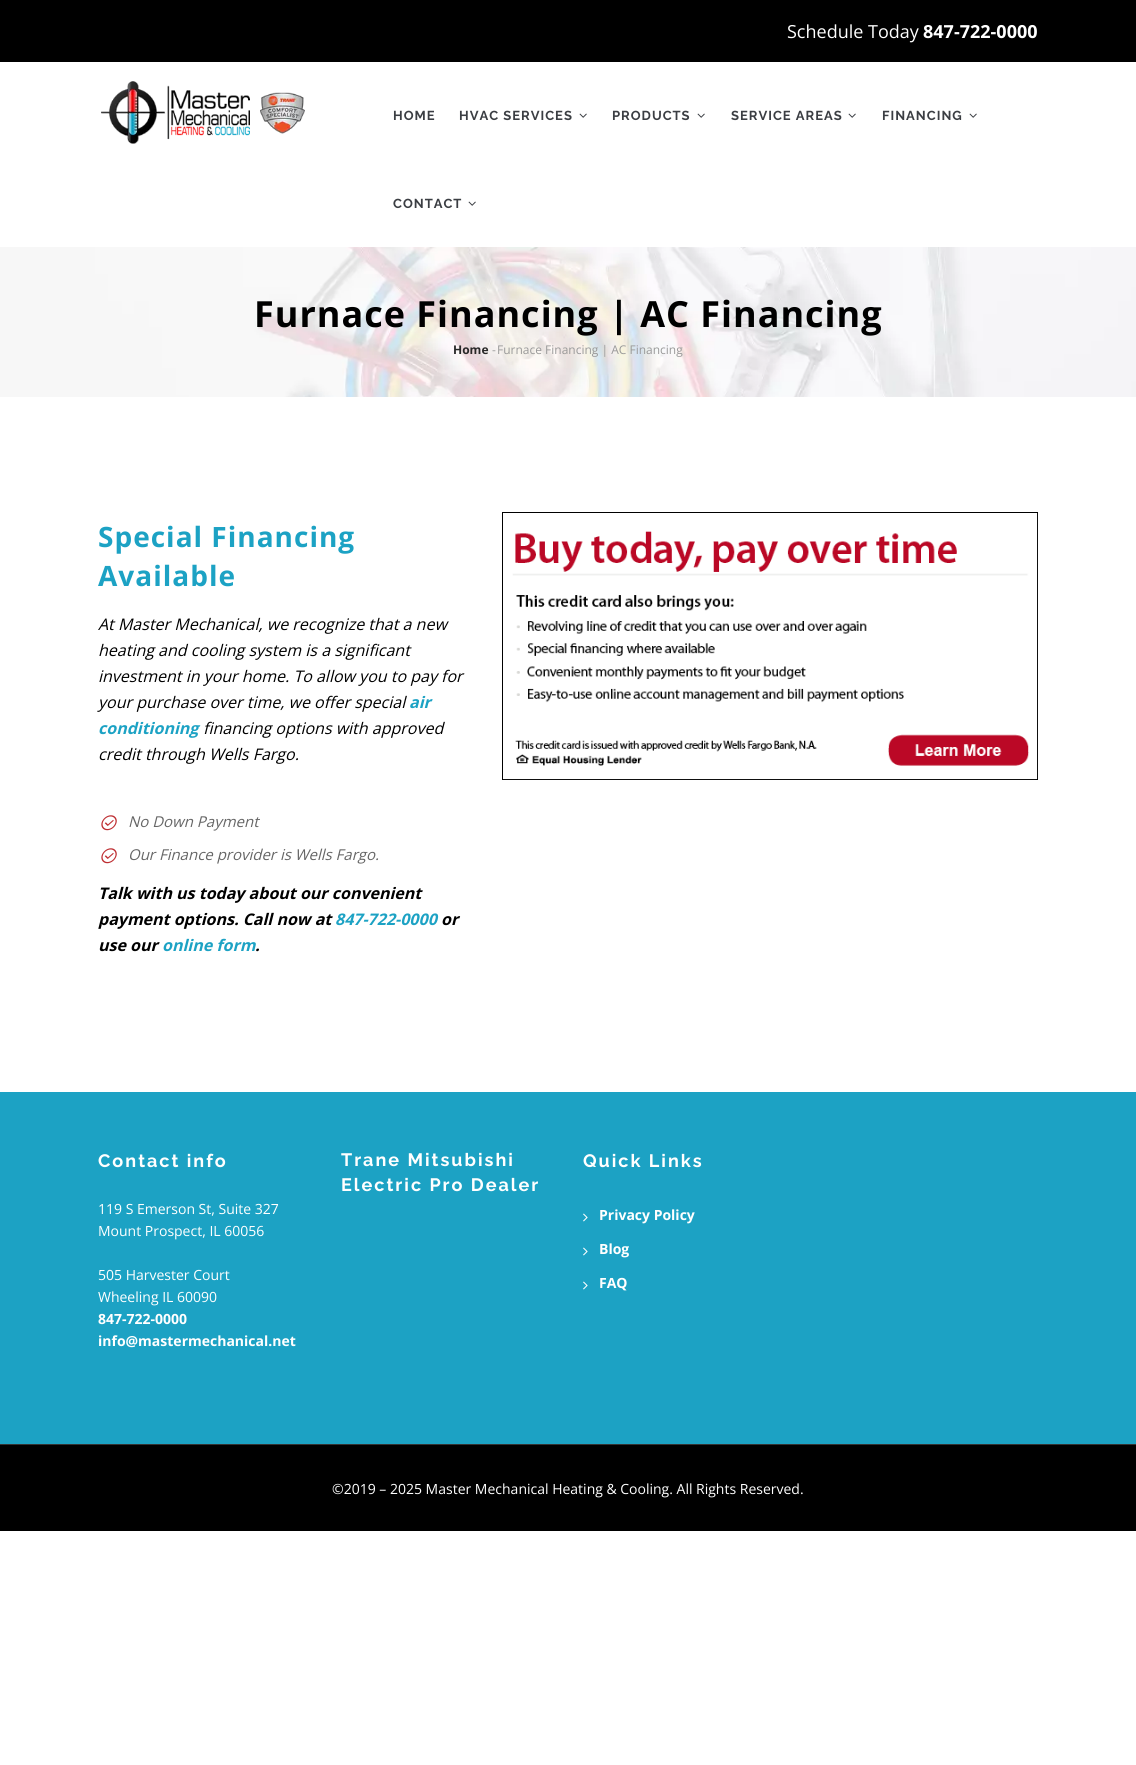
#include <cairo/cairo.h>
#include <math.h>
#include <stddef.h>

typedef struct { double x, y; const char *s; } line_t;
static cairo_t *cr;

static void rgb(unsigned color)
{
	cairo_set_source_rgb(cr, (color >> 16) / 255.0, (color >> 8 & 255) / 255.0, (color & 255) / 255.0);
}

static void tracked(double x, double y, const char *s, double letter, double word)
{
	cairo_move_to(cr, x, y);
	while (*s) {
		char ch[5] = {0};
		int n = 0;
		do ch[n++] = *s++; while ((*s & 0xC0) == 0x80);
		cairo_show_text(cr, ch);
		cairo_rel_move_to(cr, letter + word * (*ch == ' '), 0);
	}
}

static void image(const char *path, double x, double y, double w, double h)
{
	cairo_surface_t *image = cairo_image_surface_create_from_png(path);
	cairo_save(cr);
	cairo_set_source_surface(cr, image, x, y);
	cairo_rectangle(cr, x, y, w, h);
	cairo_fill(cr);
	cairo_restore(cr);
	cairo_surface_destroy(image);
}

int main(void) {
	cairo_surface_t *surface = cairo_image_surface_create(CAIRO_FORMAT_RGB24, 1136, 1765);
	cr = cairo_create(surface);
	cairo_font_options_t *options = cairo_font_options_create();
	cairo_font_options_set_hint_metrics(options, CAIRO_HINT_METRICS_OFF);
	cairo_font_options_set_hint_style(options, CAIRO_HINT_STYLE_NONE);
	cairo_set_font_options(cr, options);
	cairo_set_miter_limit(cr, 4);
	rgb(0xffffff);
	cairo_paint(cr);
	rgb(0x000000);
	cairo_rectangle(cr, 0, 0, 1136, 62);
	cairo_fill(cr);
	image("img/1.png", 101, 81, 204, 63);
	image("img/2.png", 579, 113, 8, 5);
	image("img/2.png", 697, 113, 8, 5);
	image("img/2.png", 848, 113, 8, 5);
	image("img/2.png", 969, 113, 8, 5);
	image("img/2.png", 468, 201, 8, 5);
	image("img/3.png", 0, 247, 1136, 150);
	image("img/4.png", 101, 815, 16, 16);
	image("img/4.png", 101, 848, 16, 16);
	image("img/5.png", 502, 512, 536, 268);
	rgb(0x1ca2c4);
	cairo_rectangle(cr, 0, 1092, 1136, 352);
	cairo_fill(cr);
	image("img/6.png", 583, 1213, 5, 9);
	image("img/6.png", 583, 1247, 5, 9);
	image("img/6.png", 583, 1281, 5, 9);
	rgb(0x000000);
	cairo_rectangle(cr, 0, 1445, 1136, 86);
	cairo_fill(cr);
	rgb(0x333333);
	cairo_rectangle(cr, 0, 1444, 1136, 1);
	cairo_fill(cr);
	cairo_select_font_face(cr, "Open Sans", CAIRO_FONT_SLANT_NORMAL, CAIRO_FONT_WEIGHT_NORMAL);
	cairo_set_font_size(cr, 18);
	rgb(0xffffff);
	cairo_move_to(cr, 787, 38);
	cairo_show_text(cr, "Schedule Today");
	cairo_select_font_face(cr, "Open Sans", CAIRO_FONT_SLANT_NORMAL, CAIRO_FONT_WEIGHT_BOLD);
	cairo_move_to(cr, 923, 38);
	cairo_show_text(cr, "847-722-0000");
	cairo_select_font_face(cr, "Raleway", CAIRO_FONT_SLANT_NORMAL, CAIRO_FONT_WEIGHT_BOLD);
	cairo_set_font_size(cr, 13);
	rgb(0x3b3e43);
	{
		static const line_t items[] = {
			{393, 120, "HOME"},
			{459, 120, "HVAC SERVICES"},
			{612, 120, "PRODUCTS"},
			{731, 120, "SERVICE AREAS"},
			{882, 120, "FINANCING"},
			{393, 208, "CONTACT"},
		};
		for (size_t i = 0; i < sizeof items / sizeof *items; i++) {
			tracked(items[i].x, items[i].y, items[i].s, 1, 0);
		}
	}
	cairo_select_font_face(cr, "Open Sans", CAIRO_FONT_SLANT_NORMAL, CAIRO_FONT_WEIGHT_BOLD);
	cairo_set_font_size(cr, 36);
	rgb(0x000000);
	tracked(254, 327, "Furnace Financing | AC Financing", 1, 0);
	cairo_set_font_size(cr, 12);
	rgb(0x282828);
	cairo_move_to(cr, 453, 354);
	cairo_show_text(cr, "Home");
	cairo_select_font_face(cr, "Open Sans", CAIRO_FONT_SLANT_NORMAL, CAIRO_FONT_WEIGHT_NORMAL);
	rgb(0x999999);
	cairo_move_to(cr, 492, 354);
	cairo_show_text(cr, "-");
	cairo_move_to(cr, 497, 354);
	cairo_show_text(cr, "Furnace Financing | AC Financing");
	cairo_select_font_face(cr, "Open Sans", CAIRO_FONT_SLANT_NORMAL, CAIRO_FONT_WEIGHT_BOLD);
	cairo_set_font_size(cr, 28);
	rgb(0x1ca2c4);
	tracked(98, 547, "Special Financing", 1, 0);
	tracked(98, 586, "Available", 1, 0);
	cairo_select_font_face(cr, "Open Sans", CAIRO_FONT_SLANT_ITALIC, CAIRO_FONT_WEIGHT_NORMAL);
	cairo_set_font_size(cr, 16);
	rgb(0x000000);
	{
		static const line_t items[] = {
			{98, 630, "At Master Mechanical, we recognize that a new"},
			{98, 656, "heating and cooling system is a significant"},
			{98, 682, "investment in your home. To allow you to pay for"},
			{98, 708, "your purchase over time, we offer special"},
		};
		for (size_t i = 0; i < sizeof items / sizeof *items; i++) {
			cairo_move_to(cr, items[i].x, items[i].y);
			cairo_show_text(cr, items[i].s);
		}
	}
	cairo_select_font_face(cr, "Open Sans", CAIRO_FONT_SLANT_ITALIC, CAIRO_FONT_WEIGHT_BOLD);
	rgb(0x1ca2c4);
	cairo_move_to(cr, 409, 708);
	cairo_show_text(cr, "air");
	cairo_move_to(cr, 98, 734);
	cairo_show_text(cr, "conditioning");
	cairo_select_font_face(cr, "Open Sans", CAIRO_FONT_SLANT_ITALIC, CAIRO_FONT_WEIGHT_NORMAL);
	rgb(0x000000);
	cairo_move_to(cr, 203, 734);
	cairo_show_text(cr, "financing options with approved");
	cairo_move_to(cr, 98, 760);
	cairo_show_text(cr, "credit through Wells Fargo.");
	cairo_set_font_size(cr, 15);
	rgb(0x666666);
	cairo_move_to(cr, 128, 827);
	cairo_show_text(cr, "No Down Payment");
	cairo_move_to(cr, 128, 860);
	cairo_show_text(cr, "Our Finance provider is Wells Fargo.");
	cairo_select_font_face(cr, "Open Sans", CAIRO_FONT_SLANT_ITALIC, CAIRO_FONT_WEIGHT_BOLD);
	cairo_set_font_size(cr, 16);
	rgb(0x000000);
	cairo_move_to(cr, 98, 899);
	cairo_show_text(cr, "Talk with us today about our convenient");
	cairo_move_to(cr, 98, 925);
	cairo_show_text(cr, "payment options. Call now at");
	rgb(0x1ca2c4);
	cairo_move_to(cr, 335, 925);
	cairo_show_text(cr, "847-722-0000");
	rgb(0x000000);
	cairo_move_to(cr, 441, 925);
	cairo_show_text(cr, "or");
	cairo_move_to(cr, 98, 951);
	cairo_show_text(cr, "use our");
	rgb(0x1ca2c4);
	cairo_move_to(cr, 162, 951);
	cairo_show_text(cr, "online form");
	rgb(0x000000);
	cairo_move_to(cr, 255, 951);
	cairo_show_text(cr, ".");
	cairo_select_font_face(cr, "Raleway", CAIRO_FONT_SLANT_NORMAL, CAIRO_FONT_WEIGHT_BOLD);
	cairo_set_font_size(cr, 18);
	rgb(0xffffff);
	tracked(98, 1167, "Contact info", 2, 0);
	cairo_select_font_face(cr, "Open Sans", CAIRO_FONT_SLANT_NORMAL, CAIRO_FONT_WEIGHT_NORMAL);
	cairo_set_font_size(cr, 14);
	{
		static const line_t items[] = {
			{98, 1214, "119 S Emerson St, Suite 327"},
			{98, 1236, "Mount Prospect, IL 60056"},
			{98, 1280, "505 Harvester Court"},
			{98, 1302, "Wheeling IL 60090"},
		};
		for (size_t i = 0; i < sizeof items / sizeof *items; i++) {
			cairo_move_to(cr, items[i].x, items[i].y);
			cairo_show_text(cr, items[i].s);
		}
	}
	cairo_select_font_face(cr, "Open Sans", CAIRO_FONT_SLANT_NORMAL, CAIRO_FONT_WEIGHT_BOLD);
	cairo_move_to(cr, 98, 1324);
	cairo_show_text(cr, "847-722-0000");
	cairo_move_to(cr, 98, 1346);
	cairo_show_text(cr, "info@mastermechanical.net");
	cairo_select_font_face(cr, "Raleway", CAIRO_FONT_SLANT_NORMAL, CAIRO_FONT_WEIGHT_BOLD);
	cairo_set_font_size(cr, 18);
	{
		static const line_t items[] = {
			{341, 1166, "Trane Mitsubishi"},
			{341, 1191, "Electric Pro Dealer"},
			{583, 1167, "Quick Links"},
		};
		for (size_t i = 0; i < sizeof items / sizeof *items; i++) {
			tracked(items[i].x, items[i].y, items[i].s, 2, 0);
		}
	}
	cairo_select_font_face(cr, "Open Sans", CAIRO_FONT_SLANT_NORMAL, CAIRO_FONT_WEIGHT_BOLD);
	cairo_set_font_size(cr, 14);
	{
		static const line_t items[] = {
			{599, 1220, "Privacy Policy"},
			{599, 1254, "Blog"},
			{599, 1288, "FAQ"},
		};
		for (size_t i = 0; i < sizeof items / sizeof *items; i++) {
			cairo_move_to(cr, items[i].x, items[i].y);
			cairo_show_text(cr, items[i].s);
		}
	}
	cairo_select_font_face(cr, "Open Sans", CAIRO_FONT_SLANT_NORMAL, CAIRO_FONT_WEIGHT_NORMAL);
	cairo_move_to(cr, 332, 1494);
	cairo_show_text(cr, "©2019 – 2025 Master Mechanical Heating & Cooling. All Rights Reserved.");
	cairo_surface_write_to_png(surface, "page.png");
	cairo_font_options_destroy(options);
	cairo_destroy(cr);
	cairo_surface_destroy(surface);
	return 0;
}
